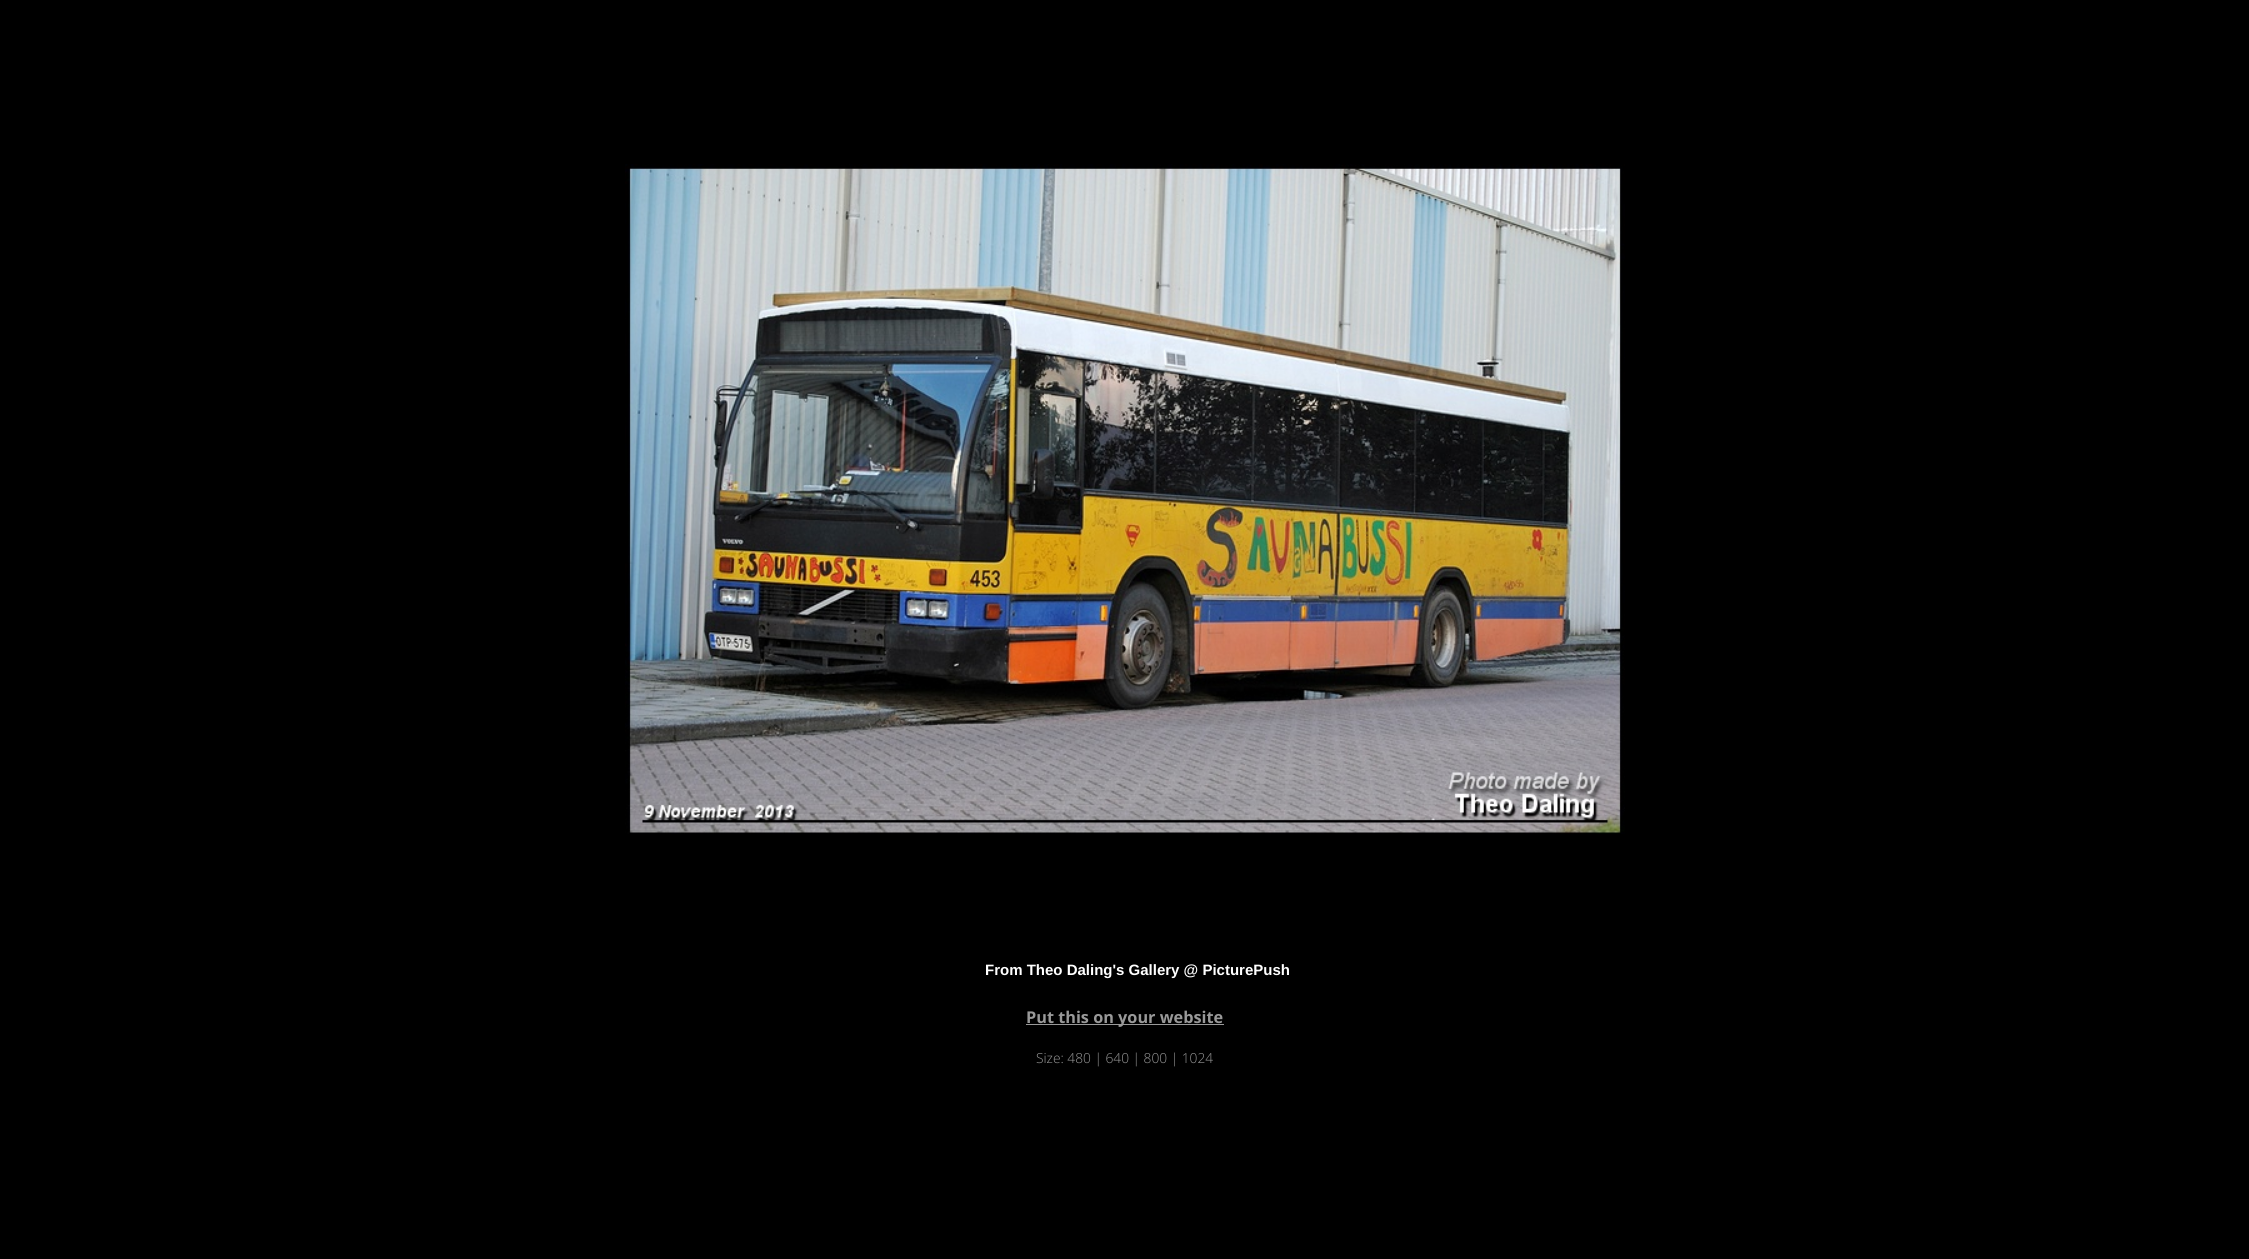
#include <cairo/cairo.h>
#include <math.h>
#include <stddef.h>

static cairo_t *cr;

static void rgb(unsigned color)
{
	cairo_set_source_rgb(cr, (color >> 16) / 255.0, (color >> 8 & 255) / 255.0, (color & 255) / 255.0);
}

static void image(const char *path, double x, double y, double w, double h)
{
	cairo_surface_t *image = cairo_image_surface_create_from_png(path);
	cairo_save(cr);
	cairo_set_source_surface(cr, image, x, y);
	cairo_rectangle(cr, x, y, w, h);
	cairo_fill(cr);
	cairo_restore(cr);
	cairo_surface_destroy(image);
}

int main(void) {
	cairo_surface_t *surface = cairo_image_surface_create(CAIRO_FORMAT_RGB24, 2249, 1259);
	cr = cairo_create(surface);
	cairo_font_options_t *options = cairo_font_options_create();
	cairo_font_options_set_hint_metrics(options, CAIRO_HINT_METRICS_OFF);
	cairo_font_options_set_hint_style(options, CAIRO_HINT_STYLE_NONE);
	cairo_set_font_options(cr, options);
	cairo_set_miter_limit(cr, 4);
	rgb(0x000000);
	cairo_paint(cr);
	image("img/1.png", 625, 164, 1000, 670);
	rgb(0x999999);
	cairo_rectangle(cr, 1026, 1024, 198, 1);
	cairo_fill(cr);
	cairo_select_font_face(cr, "Liberation Sans", CAIRO_FONT_SLANT_NORMAL, CAIRO_FONT_WEIGHT_BOLD);
	cairo_set_font_size(cr, 15);
	rgb(0xffffff);
	cairo_move_to(cr, 985, 975);
	cairo_show_text(cr, "From Theo Daling's Gallery @ PicturePush");
	cairo_select_font_face(cr, "Open Sans", CAIRO_FONT_SLANT_NORMAL, CAIRO_FONT_WEIGHT_BOLD);
	cairo_set_font_size(cr, 16.25);
	rgb(0x999999);
	cairo_move_to(cr, 1026, 1023);
	cairo_show_text(cr, "Put this on your website");
	cairo_select_font_face(cr, "Open Sans Light", CAIRO_FONT_SLANT_NORMAL, CAIRO_FONT_WEIGHT_NORMAL);
	cairo_set_font_size(cr, 13.75);
	cairo_move_to(cr, 1036, 1063);
	cairo_show_text(cr, "Size: 480 | 640 | 800 | 1024");
	cairo_surface_write_to_png(surface, "page.png");
	cairo_font_options_destroy(options);
	cairo_destroy(cr);
	cairo_surface_destroy(surface);
	return 0;
}
